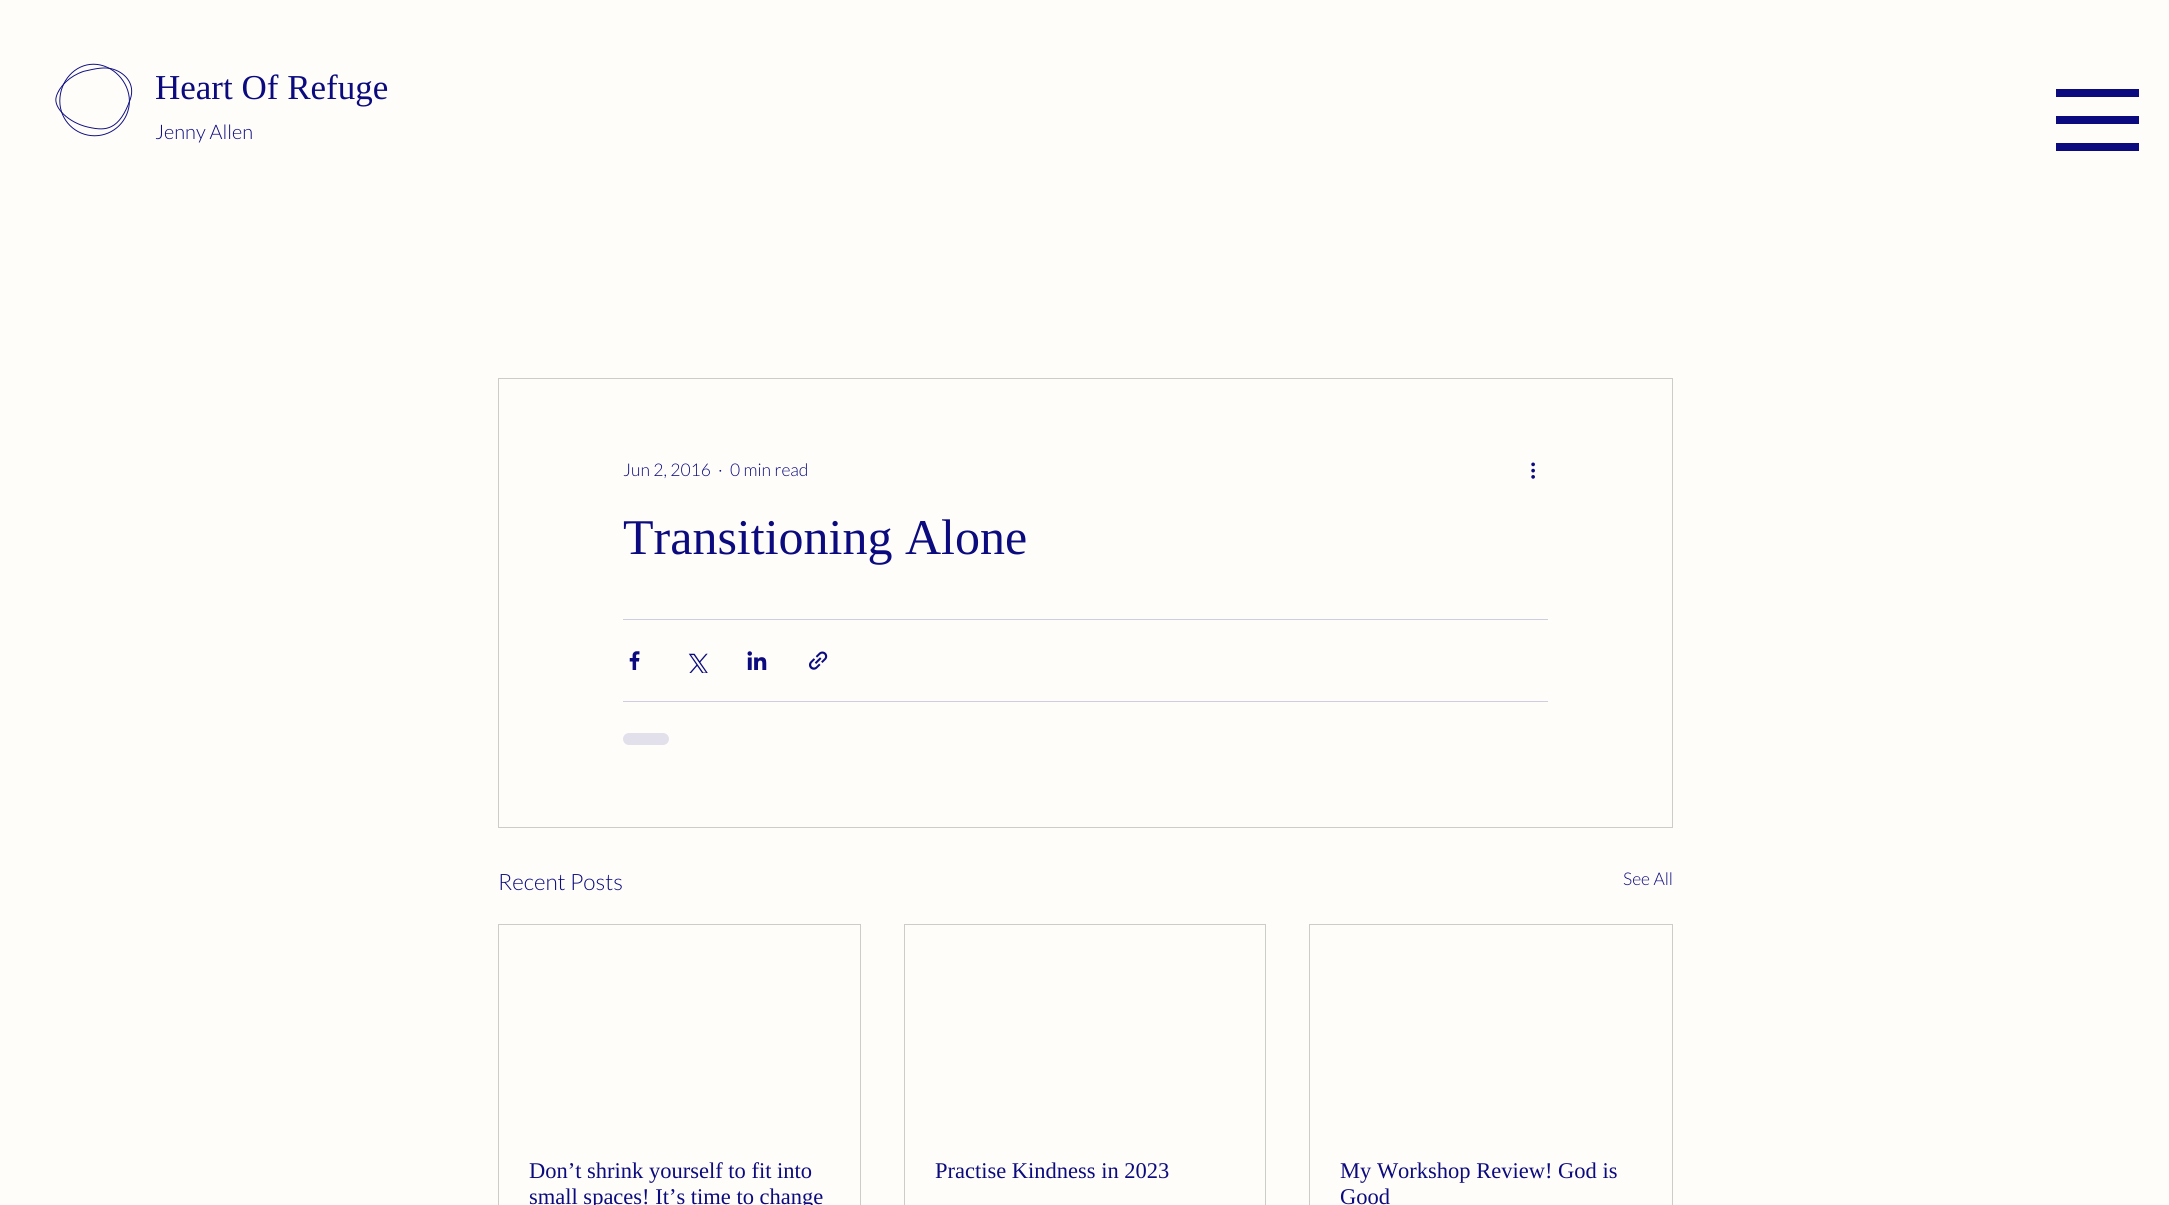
#include <cairo/cairo.h>
#include <math.h>
#include <stddef.h>

typedef struct { double x, y; const char *s; } line_t;
typedef struct { double x, y, w, h; unsigned color; } box_t;
static cairo_t *cr;

static void rgb(unsigned color)
{
	cairo_set_source_rgb(cr, (color >> 16) / 255.0, (color >> 8 & 255) / 255.0, (color & 255) / 255.0);
}

static void rrect(double x, double y, double w, double h, double r)
{
	cairo_new_sub_path(cr);
	cairo_arc(cr, x + w - r, y + h - r, r, 0, M_PI / 2);
	cairo_arc(cr, x + r, y + h - r, r, M_PI / 2, M_PI);
	cairo_arc(cr, x + r, y + r, r, M_PI, 1.5 * M_PI);
	cairo_arc(cr, x + w - r, y + r, r, 1.5 * M_PI, 2 * M_PI);
	cairo_close_path(cr);
}

static void image(const char *path, double x, double y, double w, double h)
{
	cairo_surface_t *image = cairo_image_surface_create_from_png(path);
	cairo_save(cr);
	cairo_set_source_surface(cr, image, x, y);
	cairo_rectangle(cr, x, y, w, h);
	cairo_fill(cr);
	cairo_restore(cr);
	cairo_surface_destroy(image);
}

int main(void) {
	cairo_surface_t *surface = cairo_image_surface_create(CAIRO_FORMAT_RGB24, 2169, 1205);
	cr = cairo_create(surface);
	cairo_font_options_t *options = cairo_font_options_create();
	cairo_font_options_set_hint_metrics(options, CAIRO_HINT_METRICS_OFF);
	cairo_font_options_set_hint_style(options, CAIRO_HINT_STYLE_NONE);
	cairo_set_font_options(cr, options);
	cairo_set_miter_limit(cr, 4);
	rgb(0xfffdfa);
	cairo_paint(cr);
	image("img/1.png", 55, 63, 78, 74);
	{
		static const box_t items[] = {
			{2056, 143, 83, 8, 0x0b0b7f},
			{2056, 89, 83, 8, 0x0b0b7f},
			{2056, 116, 83, 8, 0x0b0b7f},
		};
		for (size_t i = 0; i < sizeof items / sizeof *items; i++) {
			rgb(items[i].color);
			cairo_rectangle(cr, items[i].x, items[i].y, items[i].w, items[i].h);
			cairo_fill(cr);
		}
	}
	cairo_rectangle(cr, 498.5, 378.5, 1174, 449);
	rgb(0xccccc8);
	cairo_set_line_width(cr, 1);
	cairo_stroke(cr);
	image("img/2.png", 1531, 462, 4, 17);
	rgb(0xcecde1);
	cairo_rectangle(cr, 623, 619, 925, 1);
	cairo_fill(cr);
	image("img/3.png", 629, 651, 11, 19);
	image("img/4.png", 688, 653, 20, 20);
	image("img/5.png", 747, 651, 20, 19);
	image("img/6.png", 809, 651, 19, 19);
	cairo_rectangle(cr, 623, 701, 925, 1);
	cairo_fill(cr);
	rgb(0xe2e0eb);
	rrect(623, 733, 46, 12, 6);
	cairo_fill(cr);
	cairo_rectangle(cr, 498.5, 924.5, 362, 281);
	rgb(0xccccc8);
	cairo_stroke(cr);
	cairo_rectangle(cr, 904.5, 924.5, 361, 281);
	cairo_stroke(cr);
	cairo_rectangle(cr, 1309.5, 924.5, 363, 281);
	cairo_stroke(cr);
	cairo_select_font_face(cr, "Liberation Serif", CAIRO_FONT_SLANT_NORMAL, CAIRO_FONT_WEIGHT_NORMAL);
	cairo_set_font_size(cr, 35);
	rgb(0x0b0b7f);
	cairo_move_to(cr, 155, 99);
	cairo_show_text(cr, "Heart Of Refuge");
	cairo_select_font_face(cr, "Lato Light", CAIRO_FONT_SLANT_NORMAL, CAIRO_FONT_WEIGHT_NORMAL);
	cairo_set_font_size(cr, 20);
	cairo_move_to(cr, 155, 139);
	cairo_show_text(cr, "Jenny Allen");
	cairo_set_font_size(cr, 17.5);
	{
		static const line_t items[] = {
			{623, 476, "Jun 2, 2016"},
			{718, 476, "·"},
			{730, 476, "0 min read"},
		};
		for (size_t i = 0; i < sizeof items / sizeof *items; i++) {
			cairo_move_to(cr, items[i].x, items[i].y);
			cairo_show_text(cr, items[i].s);
		}
	}
	cairo_select_font_face(cr, "Liberation Serif", CAIRO_FONT_SLANT_NORMAL, CAIRO_FONT_WEIGHT_NORMAL);
	cairo_set_font_size(cr, 50);
	cairo_move_to(cr, 623, 554);
	cairo_show_text(cr, "Transitioning Alone");
	cairo_select_font_face(cr, "Lato Light", CAIRO_FONT_SLANT_NORMAL, CAIRO_FONT_WEIGHT_NORMAL);
	cairo_set_font_size(cr, 22.5);
	cairo_move_to(cr, 498, 890);
	cairo_show_text(cr, "Recent Posts");
	cairo_set_font_size(cr, 17.5);
	cairo_move_to(cr, 1623, 885);
	cairo_show_text(cr, "See All");
	cairo_select_font_face(cr, "Liberation Serif", CAIRO_FONT_SLANT_NORMAL, CAIRO_FONT_WEIGHT_NORMAL);
	cairo_set_font_size(cr, 22.5);
	{
		static const line_t items[] = {
			{529, 1178, "Don’t shrink yourself to fit into"},
			{529, 1204, "small spaces! It’s time to change"},
			{935, 1178, "Practise Kindness in 2023"},
			{1340, 1178, "My Workshop Review! God is"},
			{1340, 1204, "Good"},
		};
		for (size_t i = 0; i < sizeof items / sizeof *items; i++) {
			cairo_move_to(cr, items[i].x, items[i].y);
			cairo_show_text(cr, items[i].s);
		}
	}
	cairo_surface_write_to_png(surface, "page.png");
	cairo_font_options_destroy(options);
	cairo_destroy(cr);
	cairo_surface_destroy(surface);
	return 0;
}
